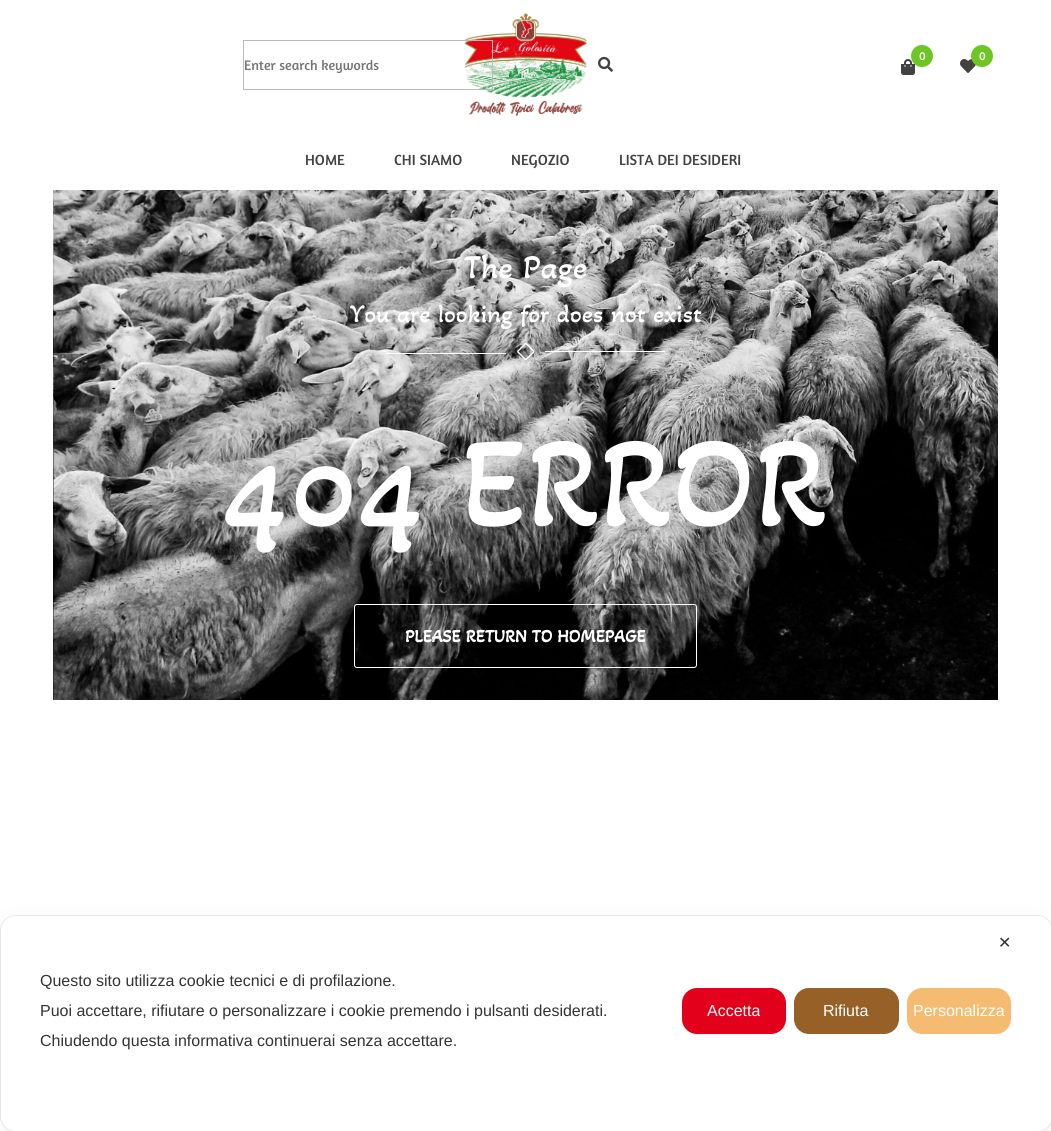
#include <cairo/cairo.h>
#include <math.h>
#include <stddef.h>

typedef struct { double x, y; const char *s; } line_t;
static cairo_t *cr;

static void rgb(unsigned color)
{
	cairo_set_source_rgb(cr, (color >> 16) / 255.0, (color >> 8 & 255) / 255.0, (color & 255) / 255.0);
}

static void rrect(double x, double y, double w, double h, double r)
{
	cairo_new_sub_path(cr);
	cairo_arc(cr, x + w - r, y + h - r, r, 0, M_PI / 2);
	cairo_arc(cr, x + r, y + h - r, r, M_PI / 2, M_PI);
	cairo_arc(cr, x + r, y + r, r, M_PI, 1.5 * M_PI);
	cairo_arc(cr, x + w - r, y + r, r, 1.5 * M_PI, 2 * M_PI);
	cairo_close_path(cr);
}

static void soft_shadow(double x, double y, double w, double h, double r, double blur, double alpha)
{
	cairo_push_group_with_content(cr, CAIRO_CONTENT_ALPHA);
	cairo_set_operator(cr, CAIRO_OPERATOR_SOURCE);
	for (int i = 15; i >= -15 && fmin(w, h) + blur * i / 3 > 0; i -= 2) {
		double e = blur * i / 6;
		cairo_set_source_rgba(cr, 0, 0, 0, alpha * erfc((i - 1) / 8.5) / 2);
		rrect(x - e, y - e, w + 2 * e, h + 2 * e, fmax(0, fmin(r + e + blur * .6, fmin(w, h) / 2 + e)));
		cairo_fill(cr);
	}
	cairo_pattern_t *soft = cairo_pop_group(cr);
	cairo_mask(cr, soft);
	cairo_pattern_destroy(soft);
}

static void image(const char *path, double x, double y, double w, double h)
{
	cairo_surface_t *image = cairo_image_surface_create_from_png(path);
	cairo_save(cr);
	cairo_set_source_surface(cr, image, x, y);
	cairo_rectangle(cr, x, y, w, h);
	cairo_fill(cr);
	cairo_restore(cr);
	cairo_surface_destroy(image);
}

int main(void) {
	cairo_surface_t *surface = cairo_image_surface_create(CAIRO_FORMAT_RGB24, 1051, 1131);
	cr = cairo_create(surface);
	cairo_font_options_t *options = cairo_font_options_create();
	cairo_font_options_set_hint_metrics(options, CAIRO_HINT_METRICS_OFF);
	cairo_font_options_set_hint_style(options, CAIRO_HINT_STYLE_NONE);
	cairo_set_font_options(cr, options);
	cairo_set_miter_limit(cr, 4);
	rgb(0xffffff);
	cairo_paint(cr);
	image("img/1.png", 464, 12, 123, 105);
	image("img/2.png", 901, 59, 14, 16);
	rgb(0x6dc623);
	cairo_arc(cr, 922, 56, 11, 0, 2 * M_PI);
	cairo_fill(cr);
	image("img/3.png", 960, 59, 16, 14);
	cairo_arc(cr, 982, 56, 11, 0, 2 * M_PI);
	cairo_fill(cr);
	cairo_rectangle(cr, 243.5, 40.5, 249, 49);
	rgb(0xbbbbbb);
	cairo_set_line_width(cr, 1);
	cairo_stroke(cr);
	image("img/4.png", 598, 56, 15, 16);
	image("img/5.png", 53, 190, 945, 510);
	image("img/6.png", 517, 342, 18, 19);
	rgb(0xffffff);
	cairo_rectangle(cr, 545, 351, 120, 1);
	cairo_fill(cr);
	cairo_rectangle(cr, 386, 353, 120, 1);
	cairo_fill(cr);
	rrect(354.5, 604.5, 342, 63, 2.5);
	cairo_stroke(cr);
	rrect(0.5, 915.5, 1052, 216, 15.5);
	rgb(0xebebeb);
	cairo_stroke(cr);
	rgb(0x000000);
	soft_shadow(1, 922, 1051, 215, 15, 12, 0.05);
	rgb(0xffffff);
	rrect(1, 916, 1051, 215, 15);
	cairo_fill(cr);
	rgb(0xe2001a);
	rrect(682, 988, 104, 46, 15);
	cairo_fill(cr);
	rgb(0x966026);
	rrect(794, 988, 105, 46, 15);
	cairo_fill(cr);
	rgb(0xf5bb71);
	rrect(907, 988, 104, 46, 15);
	cairo_fill(cr);
	cairo_select_font_face(cr, "Amaranth", CAIRO_FONT_SLANT_NORMAL, CAIRO_FONT_WEIGHT_NORMAL);
	cairo_set_font_size(cr, 12);
	rgb(0xffffff);
	cairo_move_to(cr, 919, 60);
	cairo_show_text(cr, "0");
	cairo_move_to(cr, 979, 60);
	cairo_show_text(cr, "0");
	cairo_set_font_size(cr, 14);
	rgb(0x757575);
	cairo_move_to(cr, 244, 70);
	cairo_show_text(cr, "Enter search keywords");
	cairo_set_font_size(cr, 15);
	rgb(0x424242);
	{
		static const line_t items[] = {
			{305, 165, "HOME"},
			{394, 165, "CHI SIAMO"},
			{511, 165, "NEGOZIO"},
			{619, 165, "LISTA DEI DESIDERI"},
		};
		for (size_t i = 0; i < sizeof items / sizeof *items; i++) {
			cairo_move_to(cr, items[i].x, items[i].y);
			cairo_show_text(cr, items[i].s);
		}
	}
	cairo_select_font_face(cr, "Akaya Telivigala", CAIRO_FONT_SLANT_NORMAL, CAIRO_FONT_WEIGHT_NORMAL);
	cairo_set_font_size(cr, 34);
	rgb(0xffffff);
	cairo_move_to(cr, 464, 278);
	cairo_show_text(cr, "The Page");
	cairo_set_font_size(cr, 26);
	cairo_move_to(cr, 350, 322);
	cairo_show_text(cr, "You are looking for does not exist");
	cairo_set_font_size(cr, 130);
	cairo_move_to(cr, 224, 525);
	cairo_show_text(cr, "404 ERROR");
	cairo_select_font_face(cr, "Akaya Telivigala", CAIRO_FONT_SLANT_NORMAL, CAIRO_FONT_WEIGHT_BOLD);
	cairo_set_font_size(cr, 18);
	cairo_move_to(cr, 405, 642);
	cairo_show_text(cr, "PLEASE RETURN TO HOMEPAGE");
	cairo_select_font_face(cr, "DejaVu Sans", CAIRO_FONT_SLANT_NORMAL, CAIRO_FONT_WEIGHT_NORMAL);
	cairo_set_font_size(cr, 16);
	rgb(0x333333);
	cairo_move_to(cr, 998, 948);
	cairo_show_text(cr, "✕");
	cairo_select_font_face(cr, "Liberation Sans", CAIRO_FONT_SLANT_NORMAL, CAIRO_FONT_WEIGHT_NORMAL);
	{
		static const line_t items[] = {
			{40, 986, "Questo sito utilizza cookie tecnici e di profilazione."},
			{40, 1016, "Puoi accettare, rifiutare o personalizzare i cookie premendo i pulsanti desiderati."},
			{40, 1046, "Chiudendo questa informativa continuerai senza accettare."},
		};
		for (size_t i = 0; i < sizeof items / sizeof *items; i++) {
			cairo_move_to(cr, items[i].x, items[i].y);
			cairo_show_text(cr, items[i].s);
		}
	}
	rgb(0xffffff);
	{
		static const line_t items[] = {
			{707, 1016, "Accetta"},
			{823, 1016, "Rifiuta"},
			{913, 1016, "Personalizza"},
		};
		for (size_t i = 0; i < sizeof items / sizeof *items; i++) {
			cairo_move_to(cr, items[i].x, items[i].y);
			cairo_show_text(cr, items[i].s);
		}
	}
	cairo_surface_write_to_png(surface, "page.png");
	cairo_font_options_destroy(options);
	cairo_destroy(cr);
	cairo_surface_destroy(surface);
	return 0;
}
